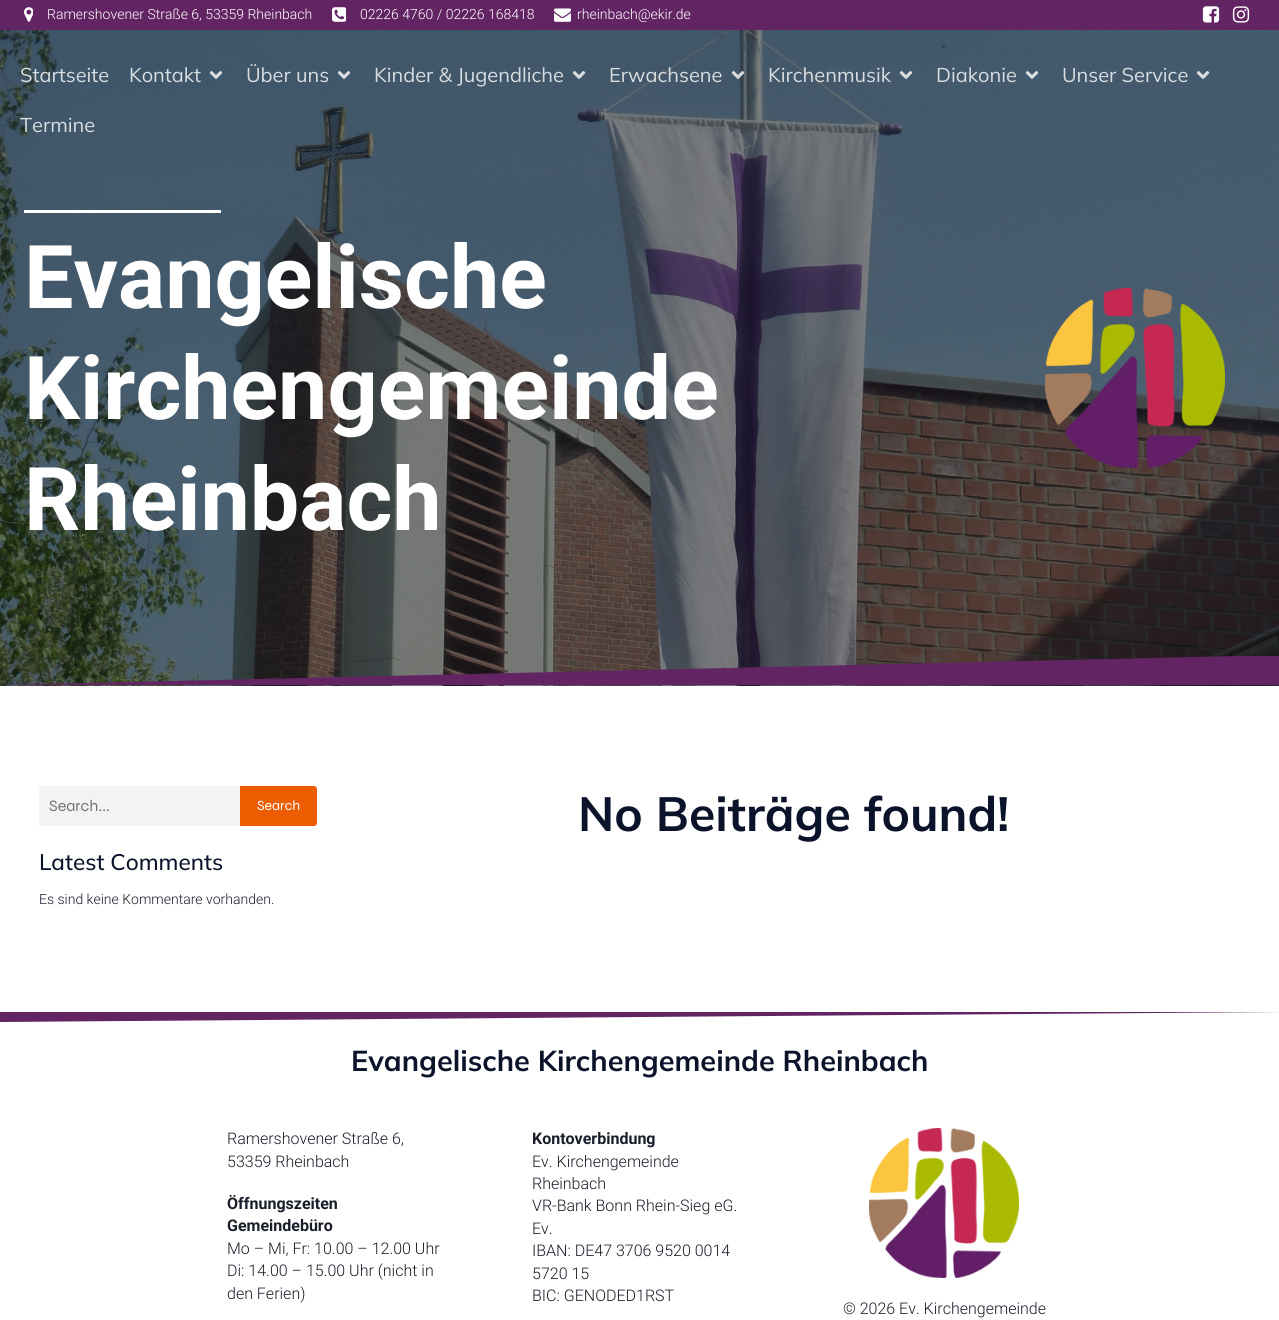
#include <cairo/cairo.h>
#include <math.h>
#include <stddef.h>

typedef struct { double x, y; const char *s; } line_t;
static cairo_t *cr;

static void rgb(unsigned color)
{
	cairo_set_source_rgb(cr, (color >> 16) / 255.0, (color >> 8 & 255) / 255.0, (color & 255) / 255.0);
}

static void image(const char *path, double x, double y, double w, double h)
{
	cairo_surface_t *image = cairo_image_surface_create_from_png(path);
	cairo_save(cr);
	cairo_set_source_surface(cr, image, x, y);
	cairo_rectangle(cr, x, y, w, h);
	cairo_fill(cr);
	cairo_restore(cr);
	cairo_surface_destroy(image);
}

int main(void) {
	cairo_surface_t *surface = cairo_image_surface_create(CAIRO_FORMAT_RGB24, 1279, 1320);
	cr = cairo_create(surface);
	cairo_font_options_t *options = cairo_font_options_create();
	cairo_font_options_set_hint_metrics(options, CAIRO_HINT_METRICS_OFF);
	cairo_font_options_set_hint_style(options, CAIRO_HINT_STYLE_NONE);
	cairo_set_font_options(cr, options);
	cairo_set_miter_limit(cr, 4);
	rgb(0xffffff);
	cairo_paint(cr);
	rgb(0x632464);
	cairo_rectangle(cr, 0, 0, 1279, 30);
	cairo_fill(cr);
	image("img/1.png", 24, 7, 9, 15);
	image("img/2.png", 332, 7, 14, 15);
	image("img/3.png", 554, 8, 17, 14);
	image("img/4.png", 1202, 6, 18, 17);
	image("img/5.png", 1232, 6, 18, 17);
	image("img/13.png", 0, 30, 1279, 656);
	image("img/6.png", 209, 71, 14, 8);
	image("img/7.png", 337, 71, 14, 8);
	image("img/8.png", 572, 71, 14, 8);
	image("img/9.png", 731, 71, 14, 8);
	image("img/10.png", 899, 71, 14, 8);
	image("img/11.png", 1025, 71, 14, 8);
	image("img/12.png", 1196, 71, 14, 8);
	rgb(0xffffff);
	cairo_rectangle(cr, 24, 210, 197, 3);
	cairo_fill(cr);
	image("img/14.png", 1045, 288, 180, 180);
	cairo_save(cr);
	cairo_rectangle(cr, 0, 656, 1279, 30);
	cairo_clip(cr);
	rgb(0x632464);
	cairo_new_path(cr);
	cairo_move_to(cr, 0, 685);
	cairo_line_to(cr, 1279, 685);
	cairo_line_to(cr, 1279, 655);
	cairo_close_path(cr);
	cairo_fill(cr);
	cairo_restore(cr);
	rgb(0xf3f3f4);
	cairo_new_path(cr);
	cairo_move_to(cr, 42, 786);
	cairo_line_to(cr, 240, 786);
	cairo_line_to(cr, 240, 826);
	cairo_line_to(cr, 42, 826);
	cairo_curve_to(cr, 40.5, 826, 39, 824.5, 39, 823);
	cairo_line_to(cr, 39, 789);
	cairo_curve_to(cr, 39, 787.5, 40.5, 786, 42, 786);
	cairo_close_path(cr);
	cairo_fill(cr);
	rgb(0xeb5d00);
	cairo_new_path(cr);
	cairo_move_to(cr, 240, 786);
	cairo_line_to(cr, 314, 786);
	cairo_curve_to(cr, 315.5, 786, 317, 787.5, 317, 789);
	cairo_line_to(cr, 317, 823);
	cairo_curve_to(cr, 317, 824.5, 315.5, 826, 314, 826);
	cairo_line_to(cr, 240, 826);
	cairo_close_path(cr);
	cairo_fill(cr);
	rgb(0x632464);
	cairo_new_path(cr);
	cairo_move_to(cr, 1279, 1012);
	cairo_line_to(cr, 0, 1012);
	cairo_line_to(cr, 0, 1022);
	cairo_close_path(cr);
	cairo_fill(cr);
	image("img/15.png", 869, 1128, 150, 150);
	cairo_select_font_face(cr, "Roboto Light", CAIRO_FONT_SLANT_NORMAL, CAIRO_FONT_WEIGHT_NORMAL);
	cairo_set_font_size(cr, 14);
	rgb(0xffffff);
	{
		static const line_t items[] = {
			{47, 19, "Ramershovener Straße 6, 53359 Rheinbach"},
			{360, 19, "02226 4760 / 02226 168418"},
			{577, 19, "rheinbach@ekir.de"},
		};
		for (size_t i = 0; i < sizeof items / sizeof *items; i++) {
			cairo_move_to(cr, items[i].x, items[i].y);
			cairo_show_text(cr, items[i].s);
		}
	}
	cairo_select_font_face(cr, "Mulish", CAIRO_FONT_SLANT_NORMAL, CAIRO_FONT_WEIGHT_NORMAL);
	cairo_set_font_size(cr, 20);
	rgb(0xd8dde0);
	{
		static const line_t items[] = {
			{20, 82, "Startseite"},
			{129, 82, "Kontakt"},
			{246, 82, "Über uns"},
			{374, 82, "Kinder & Jugendliche"},
			{609, 82, "Erwachsene"},
			{768, 82, "Kirchenmusik"},
			{936, 82, "Diakonie"},
			{1062, 82, "Unser Service"},
			{20, 132, "Termine"},
		};
		for (size_t i = 0; i < sizeof items / sizeof *items; i++) {
			cairo_move_to(cr, items[i].x, items[i].y);
			cairo_show_text(cr, items[i].s);
		}
	}
	cairo_select_font_face(cr, "Roboto", CAIRO_FONT_SLANT_NORMAL, CAIRO_FONT_WEIGHT_BOLD);
	cairo_set_font_size(cr, 88);
	rgb(0xffffff);
	{
		static const line_t items[] = {
			{24, 308, "Evangelische"},
			{24, 419, "Kirchengemeinde"},
			{24, 530, "Rheinbach"},
		};
		for (size_t i = 0; i < sizeof items / sizeof *items; i++) {
			cairo_move_to(cr, items[i].x, items[i].y);
			cairo_show_text(cr, items[i].s);
		}
	}
	cairo_select_font_face(cr, "Syne", CAIRO_FONT_SLANT_NORMAL, CAIRO_FONT_WEIGHT_NORMAL);
	cairo_set_font_size(cr, 16);
	rgb(0x757575);
	cairo_move_to(cr, 49, 811);
	cairo_show_text(cr, "Search...");
	cairo_set_font_size(cr, 14);
	rgb(0xffffff);
	cairo_move_to(cr, 257, 810);
	cairo_show_text(cr, "Search");
	cairo_select_font_face(cr, "Mulish Medium", CAIRO_FONT_SLANT_NORMAL, CAIRO_FONT_WEIGHT_NORMAL);
	cairo_set_font_size(cr, 22.5);
	rgb(0x0b132b);
	cairo_move_to(cr, 39, 870);
	cairo_show_text(cr, "Latest Comments");
	cairo_select_font_face(cr, "Roboto Light", CAIRO_FONT_SLANT_NORMAL, CAIRO_FONT_WEIGHT_NORMAL);
	cairo_set_font_size(cr, 14);
	rgb(0x191d2a);
	cairo_move_to(cr, 39, 904);
	cairo_show_text(cr, "Es sind keine Kommentare vorhanden.");
	cairo_select_font_face(cr, "Mulish", CAIRO_FONT_SLANT_NORMAL, CAIRO_FONT_WEIGHT_BOLD);
	cairo_set_font_size(cr, 48);
	rgb(0x0b132b);
	cairo_move_to(cr, 578, 831);
	cairo_show_text(cr, "No Beiträge found!");
	cairo_set_font_size(cr, 28.8);
	cairo_move_to(cr, 351, 1071);
	cairo_show_text(cr, "Evangelische Kirchengemeinde Rheinbach");
	cairo_select_font_face(cr, "Roboto Light", CAIRO_FONT_SLANT_NORMAL, CAIRO_FONT_WEIGHT_NORMAL);
	cairo_set_font_size(cr, 16);
	rgb(0x191d2a);
	cairo_move_to(cr, 227, 1144);
	cairo_show_text(cr, "Ramershovener Straße 6,");
	cairo_move_to(cr, 227, 1167);
	cairo_show_text(cr, "53359 Rheinbach");
	cairo_select_font_face(cr, "Roboto", CAIRO_FONT_SLANT_NORMAL, CAIRO_FONT_WEIGHT_BOLD);
	cairo_move_to(cr, 227, 1209);
	cairo_show_text(cr, "Öffnungszeiten");
	cairo_move_to(cr, 227, 1231);
	cairo_show_text(cr, "Gemeindebüro");
	cairo_select_font_face(cr, "Roboto Light", CAIRO_FONT_SLANT_NORMAL, CAIRO_FONT_WEIGHT_NORMAL);
	{
		static const line_t items[] = {
			{227, 1254, "Mo – Mi, Fr: 10.00 – 12.00 Uhr"},
			{227, 1276, "Di: 14.00 – 15.00 Uhr (nicht in"},
			{227, 1299, "den Ferien)"},
		};
		for (size_t i = 0; i < sizeof items / sizeof *items; i++) {
			cairo_move_to(cr, items[i].x, items[i].y);
			cairo_show_text(cr, items[i].s);
		}
	}
	cairo_select_font_face(cr, "Roboto", CAIRO_FONT_SLANT_NORMAL, CAIRO_FONT_WEIGHT_BOLD);
	cairo_move_to(cr, 532, 1144);
	cairo_show_text(cr, "Kontoverbindung");
	cairo_select_font_face(cr, "Roboto Light", CAIRO_FONT_SLANT_NORMAL, CAIRO_FONT_WEIGHT_NORMAL);
	{
		static const line_t items[] = {
			{532, 1167, "Ev. Kirchengemeinde"},
			{532, 1189, "Rheinbach"},
			{532, 1211, "VR-Bank Bonn Rhein-Sieg eG."},
			{532, 1234, "Ev."},
			{532, 1256, "IBAN: DE47 3706 9520 0014"},
			{532, 1279, "5720 15"},
			{532, 1301, "BIC: GENODED1RST"},
			{843, 1314, "© 2026 Ev. Kirchengemeinde"},
		};
		for (size_t i = 0; i < sizeof items / sizeof *items; i++) {
			cairo_move_to(cr, items[i].x, items[i].y);
			cairo_show_text(cr, items[i].s);
		}
	}
	cairo_surface_write_to_png(surface, "page.png");
	cairo_font_options_destroy(options);
	cairo_destroy(cr);
	cairo_surface_destroy(surface);
	return 0;
}
